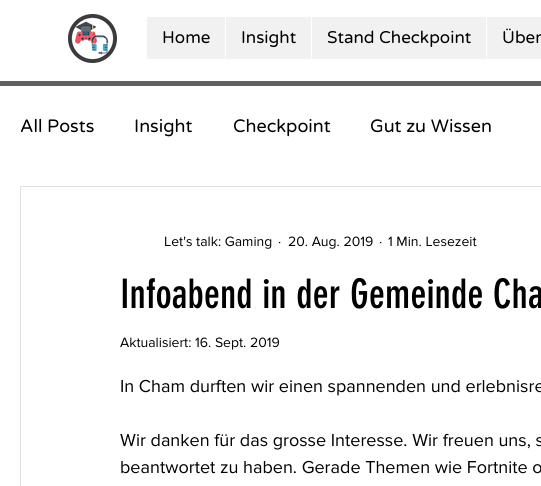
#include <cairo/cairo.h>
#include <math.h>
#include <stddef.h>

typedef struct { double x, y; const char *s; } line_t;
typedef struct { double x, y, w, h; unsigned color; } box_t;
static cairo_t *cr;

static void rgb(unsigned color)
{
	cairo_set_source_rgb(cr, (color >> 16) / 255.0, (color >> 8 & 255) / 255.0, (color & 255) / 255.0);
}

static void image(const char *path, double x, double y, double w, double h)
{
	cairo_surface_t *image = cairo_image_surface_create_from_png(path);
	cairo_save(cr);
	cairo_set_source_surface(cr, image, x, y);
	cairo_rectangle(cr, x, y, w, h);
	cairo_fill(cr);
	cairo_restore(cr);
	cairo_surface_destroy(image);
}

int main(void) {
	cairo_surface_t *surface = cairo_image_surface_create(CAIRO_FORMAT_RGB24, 541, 486);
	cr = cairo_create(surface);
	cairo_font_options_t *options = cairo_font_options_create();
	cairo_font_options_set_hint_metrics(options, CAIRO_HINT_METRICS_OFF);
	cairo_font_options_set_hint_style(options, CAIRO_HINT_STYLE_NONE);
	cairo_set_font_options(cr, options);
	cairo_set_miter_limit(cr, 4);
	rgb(0xffffff);
	cairo_paint(cr);
	image("img/1.png", 68, 14, 49, 49);
	{
		static const box_t items[] = {
			{147, 17, 394, 42, 0xf1f1f1},
			{225, 17, 1, 42, 0xffffff},
			{311, 17, 1, 42, 0xffffff},
			{486, 17, 1, 42, 0xffffff},
			{0, 81, 541, 5, 0x606060},
		};
		for (size_t i = 0; i < sizeof items / sizeof *items; i++) {
			rgb(items[i].color);
			cairo_rectangle(cr, items[i].x, items[i].y, items[i].w, items[i].h);
			cairo_fill(cr);
		}
	}
	cairo_rectangle(cr, 20.5, 186.5, 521, 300);
	rgb(0xdfdfdf);
	cairo_set_line_width(cr, 1);
	cairo_stroke(cr);
	cairo_select_font_face(cr, "Varela Round", CAIRO_FONT_SLANT_NORMAL, CAIRO_FONT_WEIGHT_NORMAL);
	cairo_set_font_size(cr, 17);
	rgb(0x000000);
	{
		static const line_t items[] = {
			{162, 43, "Home"},
			{241, 43, "Insight"},
			{327, 43, "Stand Checkpoint"},
			{502, 43, "Über"},
		};
		for (size_t i = 0; i < sizeof items / sizeof *items; i++) {
			cairo_move_to(cr, items[i].x, items[i].y);
			cairo_show_text(cr, items[i].s);
		}
	}
	cairo_set_font_size(cr, 18);
	{
		static const line_t items[] = {
			{20, 132, "All Posts"},
			{134, 132, "Insight"},
			{233, 132, "Checkpoint"},
			{370, 132, "Gut zu Wissen"},
		};
		for (size_t i = 0; i < sizeof items / sizeof *items; i++) {
			cairo_move_to(cr, items[i].x, items[i].y);
			cairo_show_text(cr, items[i].s);
		}
	}
	cairo_select_font_face(cr, "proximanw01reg", CAIRO_FONT_SLANT_NORMAL, CAIRO_FONT_WEIGHT_NORMAL);
	cairo_set_font_size(cr, 14);
	{
		static const line_t items[] = {
			{164, 246, "Let's talk: Gaming"},
			{278, 246, "·"},
			{288, 246, "20. Aug. 2019"},
			{379, 246, "·"},
			{388, 246, "1 Min. Lesezeit"},
		};
		for (size_t i = 0; i < sizeof items / sizeof *items; i++) {
			cairo_move_to(cr, items[i].x, items[i].y);
			cairo_show_text(cr, items[i].s);
		}
	}
	cairo_select_font_face(cr, "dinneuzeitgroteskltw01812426", CAIRO_FONT_SLANT_NORMAL, CAIRO_FONT_WEIGHT_NORMAL);
	cairo_set_font_size(cr, 40);
	cairo_move_to(cr, 120, 308);
	cairo_show_text(cr, "Infoabend in der Gemeinde Cha");
	cairo_select_font_face(cr, "proximanw01reg", CAIRO_FONT_SLANT_NORMAL, CAIRO_FONT_WEIGHT_NORMAL);
	cairo_set_font_size(cr, 14);
	cairo_move_to(cr, 120, 347);
	cairo_show_text(cr, "Aktualisiert: 16. Sept. 2019");
	cairo_set_font_size(cr, 18);
	{
		static const line_t items[] = {
			{120, 392, "In Cham durften wir einen spannenden und erlebnisre"},
			{120, 446, "Wir danken für das grosse Interesse. Wir freuen uns, s"},
			{120, 473, "beantwortet zu haben. Gerade Themen wie Fortnite o"},
		};
		for (size_t i = 0; i < sizeof items / sizeof *items; i++) {
			cairo_move_to(cr, items[i].x, items[i].y);
			cairo_show_text(cr, items[i].s);
		}
	}
	cairo_surface_write_to_png(surface, "page.png");
	cairo_font_options_destroy(options);
	cairo_destroy(cr);
	cairo_surface_destroy(surface);
	return 0;
}
